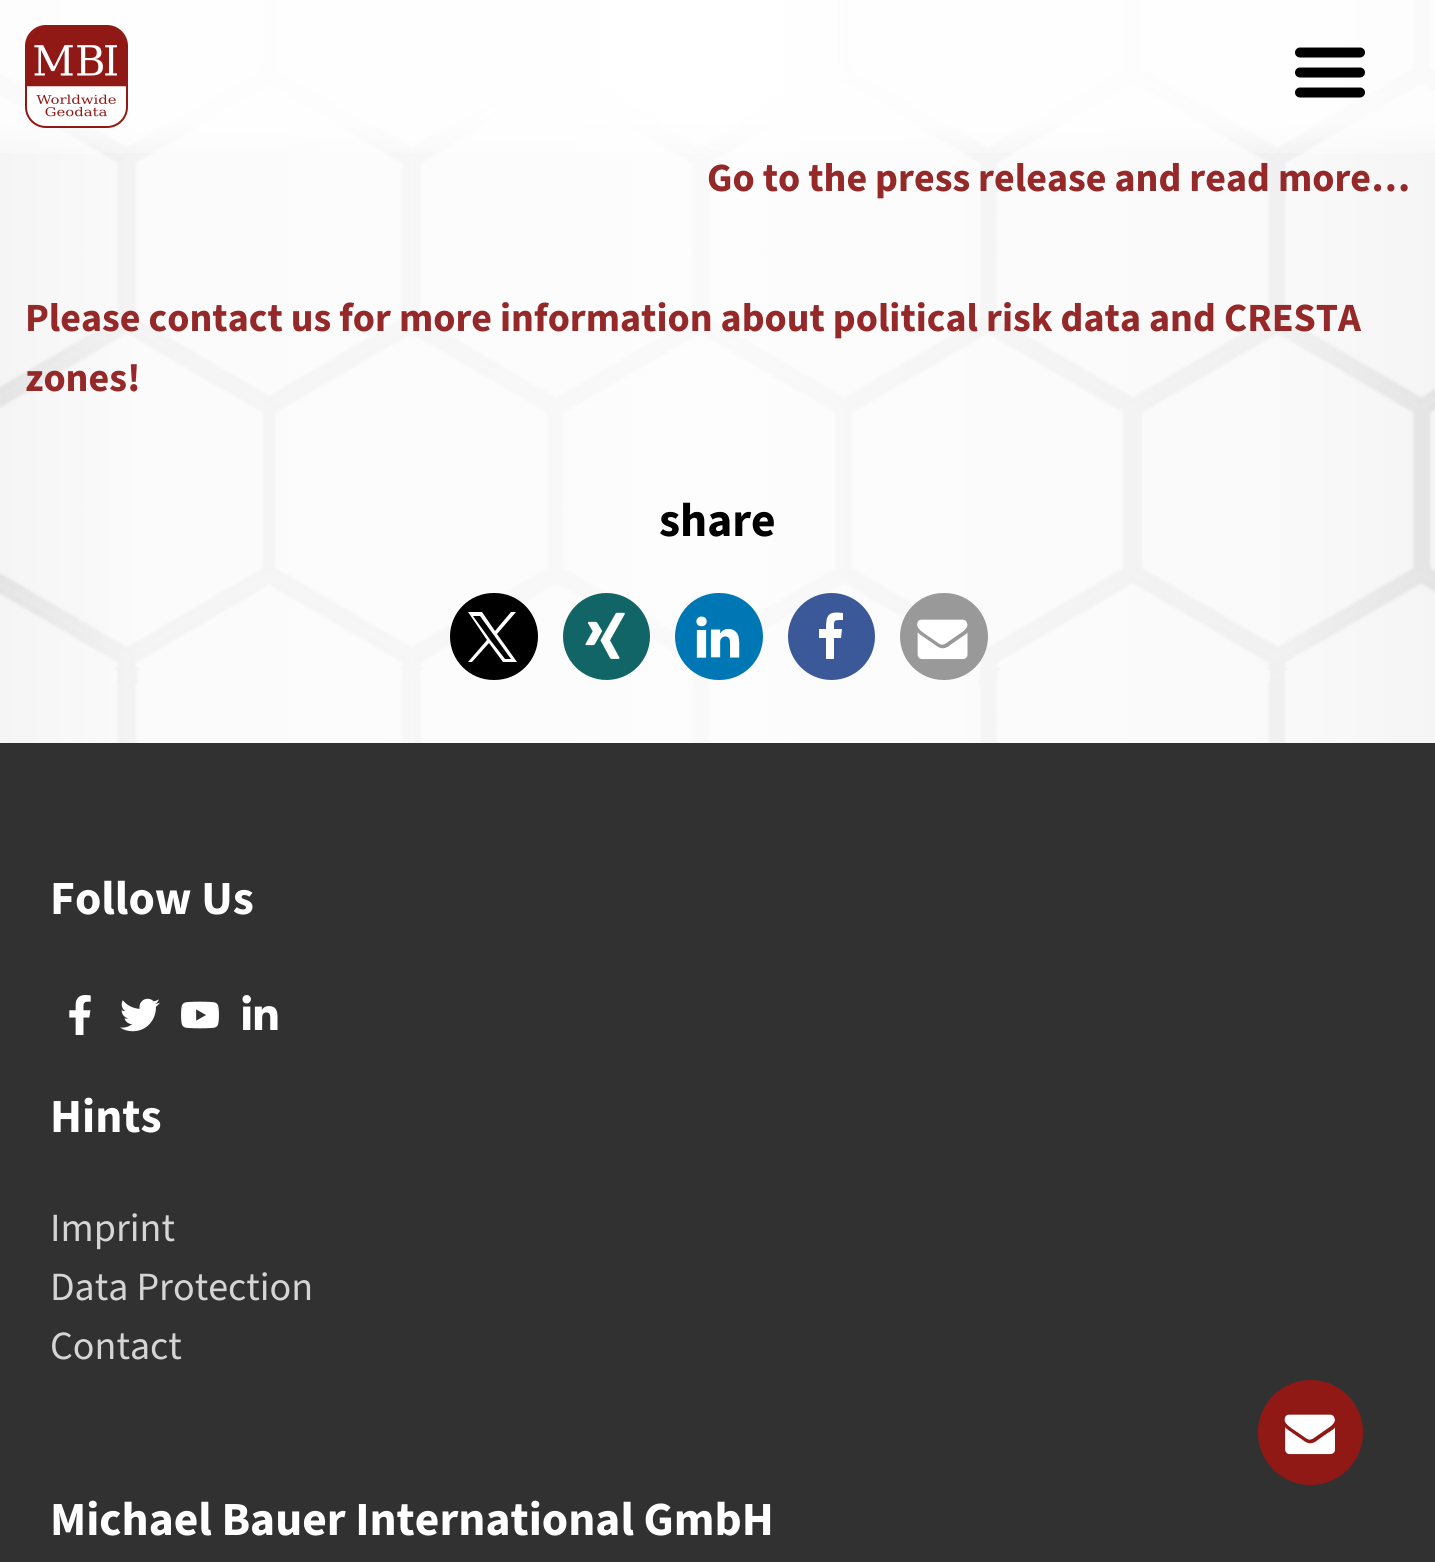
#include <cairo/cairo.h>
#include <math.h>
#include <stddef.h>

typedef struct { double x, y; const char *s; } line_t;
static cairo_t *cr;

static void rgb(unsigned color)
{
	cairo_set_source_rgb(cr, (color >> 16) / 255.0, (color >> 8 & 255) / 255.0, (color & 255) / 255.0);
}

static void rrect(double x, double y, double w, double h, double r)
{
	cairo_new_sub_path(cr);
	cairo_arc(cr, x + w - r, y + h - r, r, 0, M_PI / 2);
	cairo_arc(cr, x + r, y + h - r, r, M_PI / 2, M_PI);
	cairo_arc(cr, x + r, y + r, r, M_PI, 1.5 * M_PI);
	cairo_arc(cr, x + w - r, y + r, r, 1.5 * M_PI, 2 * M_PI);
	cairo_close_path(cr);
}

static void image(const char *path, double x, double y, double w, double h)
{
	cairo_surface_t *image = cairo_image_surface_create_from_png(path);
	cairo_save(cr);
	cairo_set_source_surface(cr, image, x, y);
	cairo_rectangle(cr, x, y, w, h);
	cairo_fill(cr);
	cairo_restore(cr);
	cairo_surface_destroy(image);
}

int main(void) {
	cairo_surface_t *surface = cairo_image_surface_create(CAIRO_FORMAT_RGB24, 1435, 1562);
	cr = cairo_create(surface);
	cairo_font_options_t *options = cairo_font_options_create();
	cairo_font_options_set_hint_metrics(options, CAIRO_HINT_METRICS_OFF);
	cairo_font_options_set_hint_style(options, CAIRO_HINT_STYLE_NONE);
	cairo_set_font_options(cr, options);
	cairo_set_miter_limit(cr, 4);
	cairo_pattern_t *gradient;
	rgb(0xffffff);
	cairo_paint(cr);
	image("img/1.png", 0, 0, 1435, 743);
	gradient = cairo_pattern_create_linear(718, 0, 718, 153);
	cairo_pattern_add_color_stop_rgba(gradient, 0, 1, 1, 1, 0.8);
	cairo_pattern_add_color_stop_rgba(gradient, 0.8, 1, 1, 1, 0.8);
	cairo_pattern_add_color_stop_rgba(gradient, 1, 1, 1, 1, 0.25);
	cairo_set_source(cr, gradient);
	cairo_pattern_destroy(gradient);
	cairo_rectangle(cr, 0, 0, 1435, 153);
	cairo_fill(cr);
	image("img/2.png", 25, 25, 103, 103);
	image("img/3.png", 1295, 47, 70, 51);
	rgb(0x000000);
	rrect(450, 593, 88, 87, 43.5);
	cairo_fill(cr);
	rgb(0xffffff);
	cairo_new_path(cr);
	cairo_move_to(cr, 497, 634);
	cairo_line_to(cr, 516, 612);
	cairo_line_to(cr, 511, 612);
	cairo_line_to(cr, 495, 631);
	cairo_line_to(cr, 482, 612);
	cairo_line_to(cr, 468, 612);
	cairo_line_to(cr, 487, 640);
	cairo_line_to(cr, 468, 662);
	cairo_line_to(cr, 472, 662);
	cairo_line_to(cr, 489, 643);
	cairo_line_to(cr, 503, 662);
	cairo_line_to(cr, 517, 662);
	cairo_close_path(cr);
	cairo_move_to(cr, 491, 641);
	cairo_line_to(cr, 473, 616);
	cairo_line_to(cr, 480, 616);
	cairo_line_to(cr, 511, 659);
	cairo_line_to(cr, 505, 659);
	cairo_close_path(cr);
	cairo_fill(cr);
	rgb(0x126567);
	cairo_arc(cr, 606.5, 636.5, 43.5, 0, 2 * M_PI);
	cairo_fill(cr);
	image("img/4.png", 585, 612, 40, 47);
	rgb(0x0077b5);
	rrect(675, 593, 88, 87, 43.5);
	cairo_fill(cr);
	image("img/5.png", 696, 616, 44, 42);
	rgb(0x3b5998);
	cairo_arc(cr, 831.5, 636.5, 43.5, 0, 2 * M_PI);
	cairo_fill(cr);
	rgb(0xffffff);
	cairo_new_path(cr);
	cairo_move_to(cr, 843, 613);
	cairo_line_to(cr, 843, 620);
	cairo_curve_to(cr, 833, 620, 834, 620, 834, 629);
	cairo_line_to(cr, 842, 629);
	cairo_line_to(cr, 841, 638);
	cairo_line_to(cr, 834, 638);
	cairo_line_to(cr, 834, 659);
	cairo_line_to(cr, 826, 659);
	cairo_line_to(cr, 826, 638);
	cairo_line_to(cr, 819, 638);
	cairo_line_to(cr, 819, 629);
	cairo_line_to(cr, 826, 629);
	cairo_curve_to(cr, 826, 615, 828, 611, 843, 613);
	cairo_close_path(cr);
	cairo_fill(cr);
	rgb(0x999999);
	rrect(900, 593, 88, 87, 43.5);
	cairo_fill(cr);
	image("img/6.png", 917, 619, 51, 41);
	rgb(0x313131);
	cairo_rectangle(cr, 0, 743, 1435, 819);
	cairo_fill(cr);
	image("img/7.png", 69, 995, 22, 40);
	image("img/8.png", 120, 998, 40, 34);
	image("img/9.png", 181, 1001, 38, 28);
	image("img/10.png", 242, 995, 36, 35);
	rgb(0x901915);
	cairo_arc(cr, 1310.5, 1432.5, 52.5, 0, 2 * M_PI);
	cairo_fill(cr);
	image("img/11.png", 1284, 1414, 52, 41);
	cairo_select_font_face(cr, "Source Sans 3", CAIRO_FONT_SLANT_NORMAL, CAIRO_FONT_WEIGHT_BOLD);
	cairo_set_font_size(cr, 40);
	rgb(0x952929);
	{
		static const line_t items[] = {
			{707, 191, "Go to the press release and read more…"},
			{25, 331, "Please contact us for more information about political risk data and CRESTA"},
			{25, 391, "zones!"},
		};
		for (size_t i = 0; i < sizeof items / sizeof *items; i++) {
			cairo_move_to(cr, items[i].x, items[i].y);
			cairo_show_text(cr, items[i].s);
		}
	}
	cairo_set_font_size(cr, 47.5);
	rgb(0x000000);
	cairo_move_to(cr, 659, 536);
	cairo_show_text(cr, "share");
	rgb(0xffffff);
	cairo_move_to(cr, 50, 914);
	cairo_show_text(cr, "Follow Us");
	cairo_move_to(cr, 50, 1132);
	cairo_show_text(cr, "Hints");
	cairo_select_font_face(cr, "Source Sans 3", CAIRO_FONT_SLANT_NORMAL, CAIRO_FONT_WEIGHT_NORMAL);
	cairo_set_font_size(cr, 40);
	rgb(0xd5d5d5);
	{
		static const line_t items[] = {
			{50, 1241, "Imprint"},
			{50, 1300, "Data Protection"},
			{50, 1359, "Contact"},
		};
		for (size_t i = 0; i < sizeof items / sizeof *items; i++) {
			cairo_move_to(cr, items[i].x, items[i].y);
			cairo_show_text(cr, items[i].s);
		}
	}
	cairo_select_font_face(cr, "Source Sans 3", CAIRO_FONT_SLANT_NORMAL, CAIRO_FONT_WEIGHT_BOLD);
	cairo_set_font_size(cr, 47.5);
	rgb(0xffffff);
	cairo_move_to(cr, 50, 1535);
	cairo_show_text(cr, "Michael Bauer International GmbH");
	cairo_surface_write_to_png(surface, "page.png");
	cairo_font_options_destroy(options);
	cairo_destroy(cr);
	cairo_surface_destroy(surface);
	return 0;
}
